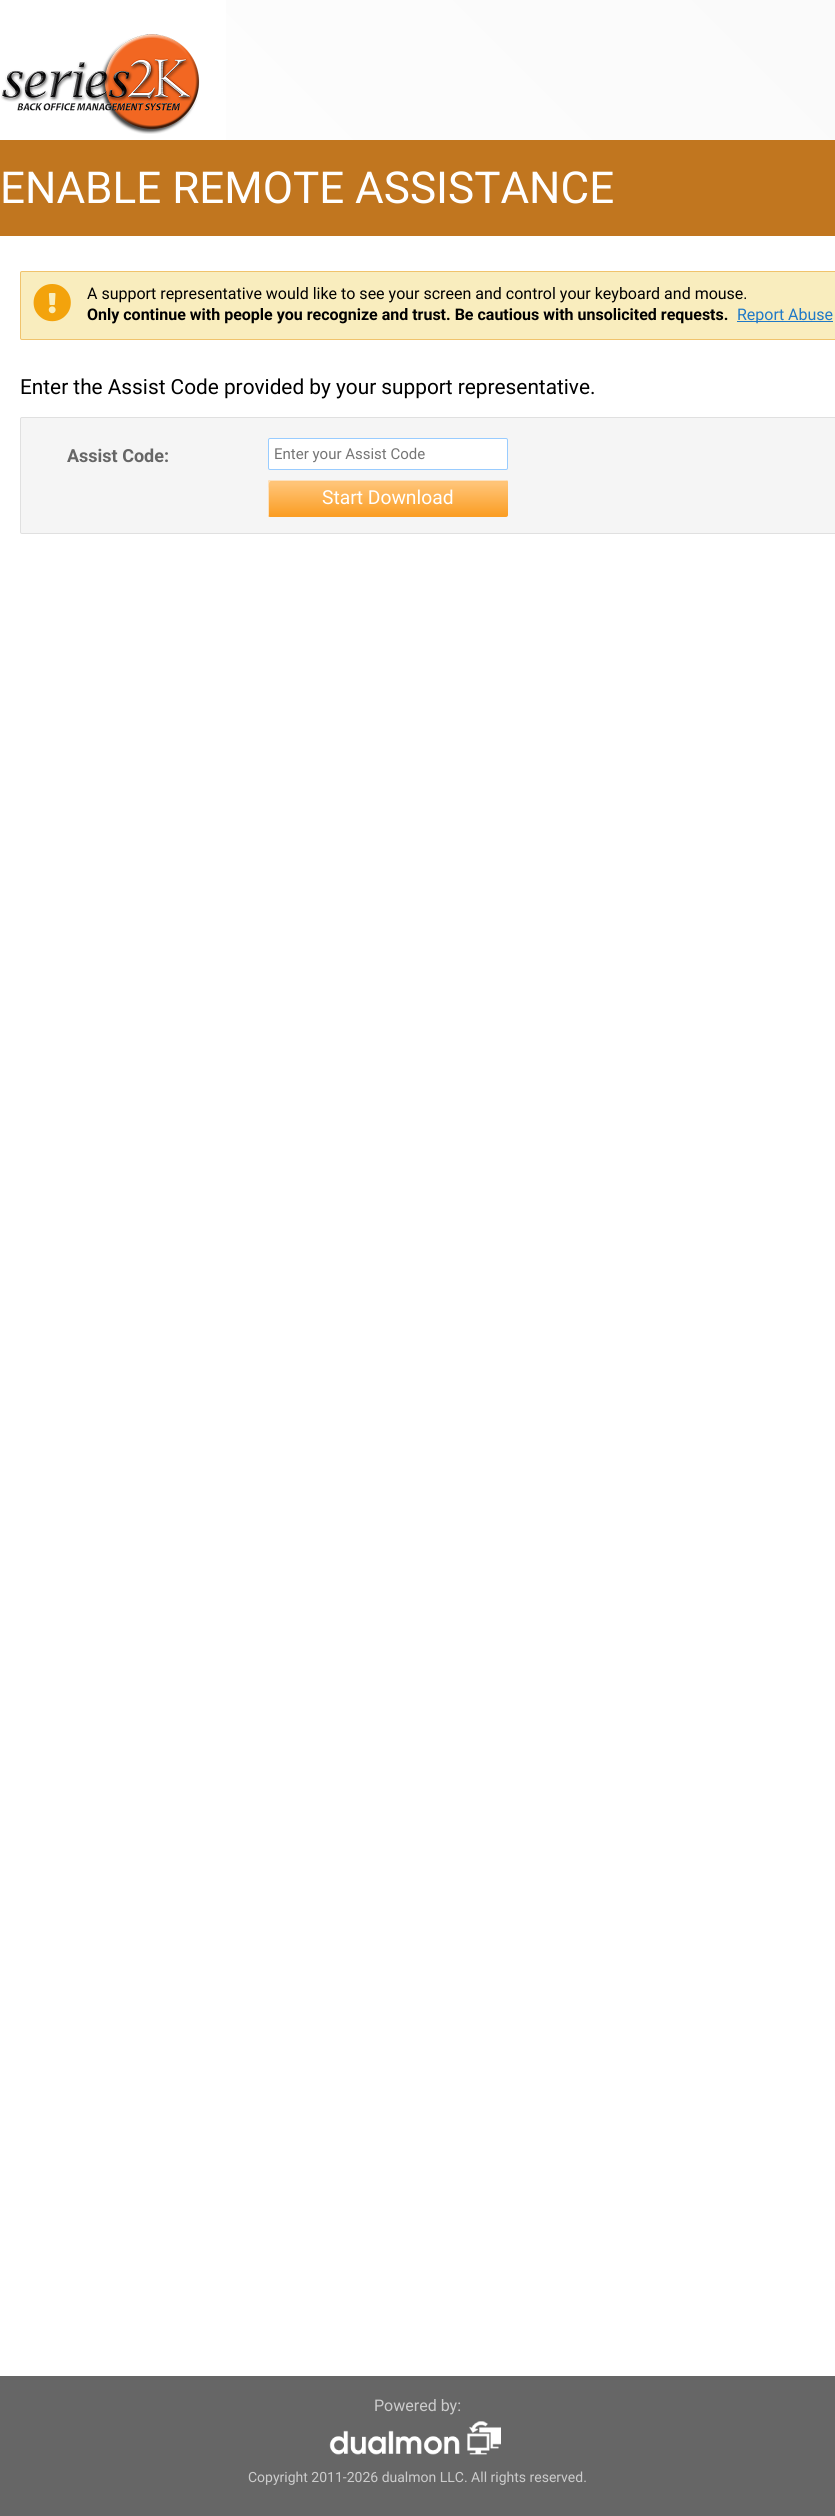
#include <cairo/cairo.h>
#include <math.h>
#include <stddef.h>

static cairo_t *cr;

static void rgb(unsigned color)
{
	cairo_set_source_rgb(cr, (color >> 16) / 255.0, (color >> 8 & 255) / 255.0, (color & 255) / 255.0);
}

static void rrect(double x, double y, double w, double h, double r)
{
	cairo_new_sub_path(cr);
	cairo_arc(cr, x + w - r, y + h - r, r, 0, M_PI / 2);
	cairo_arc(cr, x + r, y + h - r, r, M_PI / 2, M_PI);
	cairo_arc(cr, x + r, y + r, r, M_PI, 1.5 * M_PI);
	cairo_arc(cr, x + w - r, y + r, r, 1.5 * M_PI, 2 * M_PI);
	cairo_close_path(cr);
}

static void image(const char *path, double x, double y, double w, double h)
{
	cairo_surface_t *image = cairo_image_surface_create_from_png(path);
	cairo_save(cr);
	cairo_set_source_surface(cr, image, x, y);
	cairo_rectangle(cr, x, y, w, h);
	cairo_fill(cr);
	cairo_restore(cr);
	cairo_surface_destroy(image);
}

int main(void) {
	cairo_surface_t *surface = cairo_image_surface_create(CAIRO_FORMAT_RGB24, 835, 2516);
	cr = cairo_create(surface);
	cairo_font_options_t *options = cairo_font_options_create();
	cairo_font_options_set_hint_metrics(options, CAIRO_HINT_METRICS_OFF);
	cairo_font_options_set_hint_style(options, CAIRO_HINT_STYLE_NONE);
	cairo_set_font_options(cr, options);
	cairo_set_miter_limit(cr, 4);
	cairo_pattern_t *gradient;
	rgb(0xffffff);
	cairo_paint(cr);
	gradient = cairo_pattern_create_linear(174, 314, 661, -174);
	cairo_pattern_add_color_stop_rgba(gradient, 0, 0.996, 0.996, 0.996, 1);
	cairo_pattern_add_color_stop_rgba(gradient, 1, 0.98, 0.98, 0.98, 1);
	cairo_set_source(cr, gradient);
	cairo_pattern_destroy(gradient);
	cairo_rectangle(cr, 226, 0, 609, 140);
	cairo_fill(cr);
	image("img/1.png", 1, 34, 199, 100);
	rgb(0xc1761f);
	cairo_rectangle(cr, 0, 140, 835, 96);
	cairo_fill(cr);
	rgb(0xf9edbe);
	cairo_new_path(cr);
	cairo_move_to(cr, 22, 271);
	cairo_line_to(cr, 835, 271);
	cairo_line_to(cr, 835, 340);
	cairo_line_to(cr, 22, 340);
	cairo_curve_to(cr, 21, 340, 20, 339, 20, 338);
	cairo_line_to(cr, 20, 273);
	cairo_curve_to(cr, 20, 272, 21, 271, 22, 271);
	cairo_close_path(cr);
	cairo_fill(cr);
	rrect(20.5, 271.5, 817, 68, 1.5);
	rgb(0xf0c36d);
	cairo_set_line_width(cr, 1);
	cairo_stroke(cr);
	image("img/2.png", 33, 284, 38, 38);
	rgb(0x2079c7);
	cairo_rectangle(cr, 737, 321, 96, 1);
	cairo_fill(cr);
	rgb(0xf5f5f5);
	cairo_new_path(cr);
	cairo_move_to(cr, 22, 417);
	cairo_line_to(cr, 835, 417);
	cairo_line_to(cr, 835, 534);
	cairo_line_to(cr, 22, 534);
	cairo_curve_to(cr, 21, 534, 20, 533, 20, 532);
	cairo_line_to(cr, 20, 419);
	cairo_curve_to(cr, 20, 418, 21, 417, 22, 417);
	cairo_close_path(cr);
	cairo_fill(cr);
	rrect(20.5, 417.5, 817, 116, 1.5);
	rgb(0xe0e0e0);
	cairo_stroke(cr);
	rgb(0xffffff);
	rrect(268.5, 438.5, 239, 31, 1.5);
	cairo_fill_preserve(cr);
	rgb(0x99ccff);
	cairo_stroke(cr);
	gradient = cairo_pattern_create_linear(268, 480, 268, 517);
	cairo_pattern_add_color_stop_rgba(gradient, 0.09, 1, 0.769, 0.467, 1);
	cairo_pattern_add_color_stop_rgba(gradient, 0.96, 0.984, 0.62, 0.145, 1);
	cairo_set_source(cr, gradient);
	cairo_pattern_destroy(gradient);
	rrect(268, 480, 240, 37, 2);
	cairo_fill(cr);
	rgb(0xfce2c1);
	cairo_new_path(cr);
	cairo_move_to(cr, 271, 481);
	cairo_line_to(cr, 508, 481);
	cairo_curve_to(cr, 508, 481, 507, 480, 506, 480);
	cairo_line_to(cr, 270, 480);
	cairo_curve_to(cr, 269, 480, 268, 481, 268, 482);
	cairo_line_to(cr, 268, 515);
	cairo_curve_to(cr, 268, 516, 269, 517, 269, 517);
	cairo_line_to(cr, 269, 488);
	cairo_curve_to(cr, 269, 488, 268, 481, 271, 481);
	cairo_close_path(cr);
	cairo_fill(cr);
	rgb(0x666666);
	cairo_rectangle(cr, 0, 2376, 835, 140);
	cairo_fill(cr);
	image("img/3.png", 329, 2421, 172, 34);
	cairo_select_font_face(cr, "Roboto", CAIRO_FONT_SLANT_NORMAL, CAIRO_FONT_WEIGHT_NORMAL);
	cairo_set_font_size(cr, 44);
	rgb(0xffffff);
	cairo_move_to(cr, 0, 203);
	cairo_show_text(cr, "ENABLE REMOTE ASSISTANCE");
	cairo_set_font_size(cr, 16);
	rgb(0x000000);
	cairo_move_to(cr, 87, 299);
	cairo_show_text(cr, "A support representative would like to see your screen and control your keyboard and mouse.");
	cairo_select_font_face(cr, "Roboto", CAIRO_FONT_SLANT_NORMAL, CAIRO_FONT_WEIGHT_BOLD);
	cairo_move_to(cr, 87, 320);
	cairo_show_text(cr, "Only continue with people you recognize and trust. Be cautious with unsolicited requests.");
	cairo_select_font_face(cr, "Roboto", CAIRO_FONT_SLANT_NORMAL, CAIRO_FONT_WEIGHT_NORMAL);
	rgb(0x2079c7);
	cairo_move_to(cr, 737, 320);
	cairo_show_text(cr, "Report Abuse");
	cairo_set_font_size(cr, 20.8);
	rgb(0x000000);
	cairo_move_to(cr, 20, 394);
	cairo_show_text(cr, "Enter the Assist Code provided by your support representative.");
	cairo_select_font_face(cr, "Roboto", CAIRO_FONT_SLANT_NORMAL, CAIRO_FONT_WEIGHT_BOLD);
	cairo_set_font_size(cr, 18);
	rgb(0x666666);
	cairo_move_to(cr, 67, 462);
	cairo_show_text(cr, "Assist Code:");
	cairo_select_font_face(cr, "Roboto", CAIRO_FONT_SLANT_NORMAL, CAIRO_FONT_WEIGHT_NORMAL);
	cairo_set_font_size(cr, 15);
	rgb(0x757575);
	cairo_move_to(cr, 274, 459);
	cairo_show_text(cr, "Enter your Assist Code");
	cairo_set_font_size(cr, 19.25);
	rgb(0xffffff);
	cairo_move_to(cr, 322, 504);
	cairo_show_text(cr, "Start Download");
	cairo_set_font_size(cr, 16);
	rgb(0xcccccc);
	cairo_move_to(cr, 374, 2411);
	cairo_show_text(cr, "Powered by:");
	cairo_set_font_size(cr, 14);
	cairo_move_to(cr, 248, 2482);
	cairo_show_text(cr, "Copyright 2011-2026 dualmon LLC. All rights reserved.");
	cairo_surface_write_to_png(surface, "page.png");
	cairo_font_options_destroy(options);
	cairo_destroy(cr);
	cairo_surface_destroy(surface);
	return 0;
}
